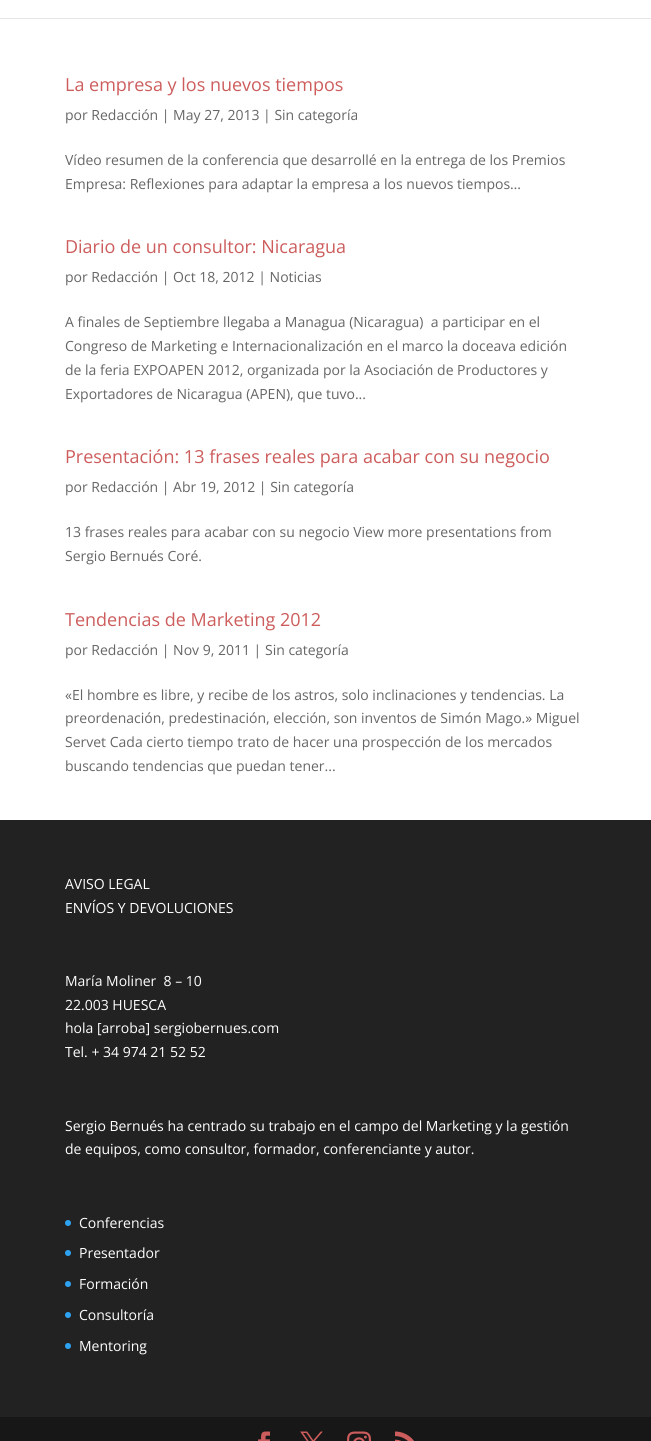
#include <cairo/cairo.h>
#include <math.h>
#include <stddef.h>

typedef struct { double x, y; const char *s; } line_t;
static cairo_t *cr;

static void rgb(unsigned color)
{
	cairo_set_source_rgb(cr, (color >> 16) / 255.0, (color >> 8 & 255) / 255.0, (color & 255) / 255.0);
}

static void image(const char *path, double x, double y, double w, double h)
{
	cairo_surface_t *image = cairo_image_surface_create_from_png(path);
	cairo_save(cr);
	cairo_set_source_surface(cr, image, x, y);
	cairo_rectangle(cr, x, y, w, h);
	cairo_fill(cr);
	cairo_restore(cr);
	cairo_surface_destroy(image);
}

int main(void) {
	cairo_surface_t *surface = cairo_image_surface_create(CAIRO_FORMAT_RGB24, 651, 1441);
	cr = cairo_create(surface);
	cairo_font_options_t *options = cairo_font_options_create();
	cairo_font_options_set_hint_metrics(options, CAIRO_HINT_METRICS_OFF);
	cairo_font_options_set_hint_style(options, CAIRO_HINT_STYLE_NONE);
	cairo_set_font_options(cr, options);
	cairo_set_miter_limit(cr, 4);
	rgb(0xffffff);
	cairo_paint(cr);
	rgb(0xe6e6e6);
	cairo_rectangle(cr, 0, 18, 651, 1);
	cairo_fill(cr);
	rgb(0x222222);
	cairo_rectangle(cr, 0, 820, 651, 597);
	cairo_fill(cr);
	rgb(0x2ea3f2);
	cairo_arc(cr, 68, 1223, 3, 0, 2 * M_PI);
	cairo_fill(cr);
	cairo_arc(cr, 68, 1253, 3, 0, 2 * M_PI);
	cairo_fill(cr);
	cairo_arc(cr, 68, 1284, 3, 0, 2 * M_PI);
	cairo_fill(cr);
	cairo_arc(cr, 68, 1315, 3, 0, 2 * M_PI);
	cairo_fill(cr);
	cairo_arc(cr, 68, 1346, 3, 0, 2 * M_PI);
	cairo_fill(cr);
	rgb(0x171717);
	cairo_rectangle(cr, 0, 1417, 651, 24);
	cairo_fill(cr);
	image("img/1.png", 258, 1431, 13, 10);
	image("img/2.png", 300, 1431, 23, 10);
	image("img/3.png", 347, 1431, 24, 10);
	image("img/4.png", 395, 1431, 19, 10);
	cairo_select_font_face(cr, "Open Sans", CAIRO_FONT_SLANT_NORMAL, CAIRO_FONT_WEIGHT_NORMAL);
	cairo_set_font_size(cr, 18);
	rgb(0xcd5c5c);
	cairo_move_to(cr, 65, 91);
	cairo_show_text(cr, "La empresa y los nuevos tiempos");
	cairo_set_font_size(cr, 14);
	rgb(0x666666);
	{
		static const line_t items[] = {
			{65, 120, "por Redacción | May 27, 2013 | Sin categoría"},
			{65, 165, "Vídeo resumen de la conferencia que desarrollé en la entrega de los Premios"},
			{65, 189, "Empresa: Reflexiones para adaptar la empresa a los nuevos tiempos…"},
		};
		for (size_t i = 0; i < sizeof items / sizeof *items; i++) {
			cairo_move_to(cr, items[i].x, items[i].y);
			cairo_show_text(cr, items[i].s);
		}
	}
	cairo_set_font_size(cr, 18);
	rgb(0xcd5c5c);
	cairo_move_to(cr, 65, 253);
	cairo_show_text(cr, "Diario de un consultor: Nicaragua");
	cairo_set_font_size(cr, 14);
	rgb(0x666666);
	{
		static const line_t items[] = {
			{65, 282, "por Redacción | Oct 18, 2012 | Noticias"},
			{65, 327, "A finales de Septiembre llegaba a Managua (Nicaragua)  a participar en el"},
			{65, 351, "Congreso de Marketing e Internacionalización en el marco la doceava edición"},
			{65, 375, "de la feria EXPOAPEN 2012, organizada por la Asociación de Productores y"},
			{65, 399, "Exportadores de Nicaragua (APEN), que tuvo..."},
		};
		for (size_t i = 0; i < sizeof items / sizeof *items; i++) {
			cairo_move_to(cr, items[i].x, items[i].y);
			cairo_show_text(cr, items[i].s);
		}
	}
	cairo_set_font_size(cr, 18);
	rgb(0xcd5c5c);
	cairo_move_to(cr, 65, 463);
	cairo_show_text(cr, "Presentación: 13 frases reales para acabar con su negocio");
	cairo_set_font_size(cr, 14);
	rgb(0x666666);
	{
		static const line_t items[] = {
			{65, 492, "por Redacción | Abr 19, 2012 | Sin categoría"},
			{65, 537, "13 frases reales para acabar con su negocio View more presentations from"},
			{65, 561, "Sergio Bernués Coré."},
		};
		for (size_t i = 0; i < sizeof items / sizeof *items; i++) {
			cairo_move_to(cr, items[i].x, items[i].y);
			cairo_show_text(cr, items[i].s);
		}
	}
	cairo_set_font_size(cr, 18);
	rgb(0xcd5c5c);
	cairo_move_to(cr, 65, 626);
	cairo_show_text(cr, "Tendencias de Marketing 2012");
	cairo_set_font_size(cr, 14);
	rgb(0x666666);
	{
		static const line_t items[] = {
			{65, 655, "por Redacción | Nov 9, 2011 | Sin categoría"},
			{65, 700, "«El hombre es libre, y recibe de los astros, solo inclinaciones y tendencias. La"},
			{65, 723, "preordenación, predestinación, elección, son inventos de Simón Mago.» Miguel"},
			{65, 747, "Servet Cada cierto tiempo trato de hacer una prospección de los mercados"},
			{65, 771, "buscando tendencias que puedan tener..."},
		};
		for (size_t i = 0; i < sizeof items / sizeof *items; i++) {
			cairo_move_to(cr, items[i].x, items[i].y);
			cairo_show_text(cr, items[i].s);
		}
	}
	rgb(0xffffff);
	{
		static const line_t items[] = {
			{65, 889, "AVISO LEGAL"},
			{65, 913, "ENVÍOS Y DEVOLUCIONES"},
			{65, 986, "María Moliner  8 – 10"},
			{65, 1010, "22.003 HUESCA"},
			{65, 1033, "hola [arroba] sergiobernues.com"},
			{65, 1057, "Tel. + 34 974 21 52 52"},
			{65, 1131, "Sergio Bernués ha centrado su trabajo en el campo del Marketing y la gestión"},
			{65, 1154, "de equipos, como consultor, formador, conferenciante y autor."},
			{79, 1228, "Conferencias"},
			{79, 1258, "Presentador"},
			{79, 1289, "Formación"},
			{79, 1320, "Consultoría"},
			{79, 1351, "Mentoring"},
		};
		for (size_t i = 0; i < sizeof items / sizeof *items; i++) {
			cairo_move_to(cr, items[i].x, items[i].y);
			cairo_show_text(cr, items[i].s);
		}
	}
	cairo_surface_write_to_png(surface, "page.png");
	cairo_font_options_destroy(options);
	cairo_destroy(cr);
	cairo_surface_destroy(surface);
	return 0;
}
